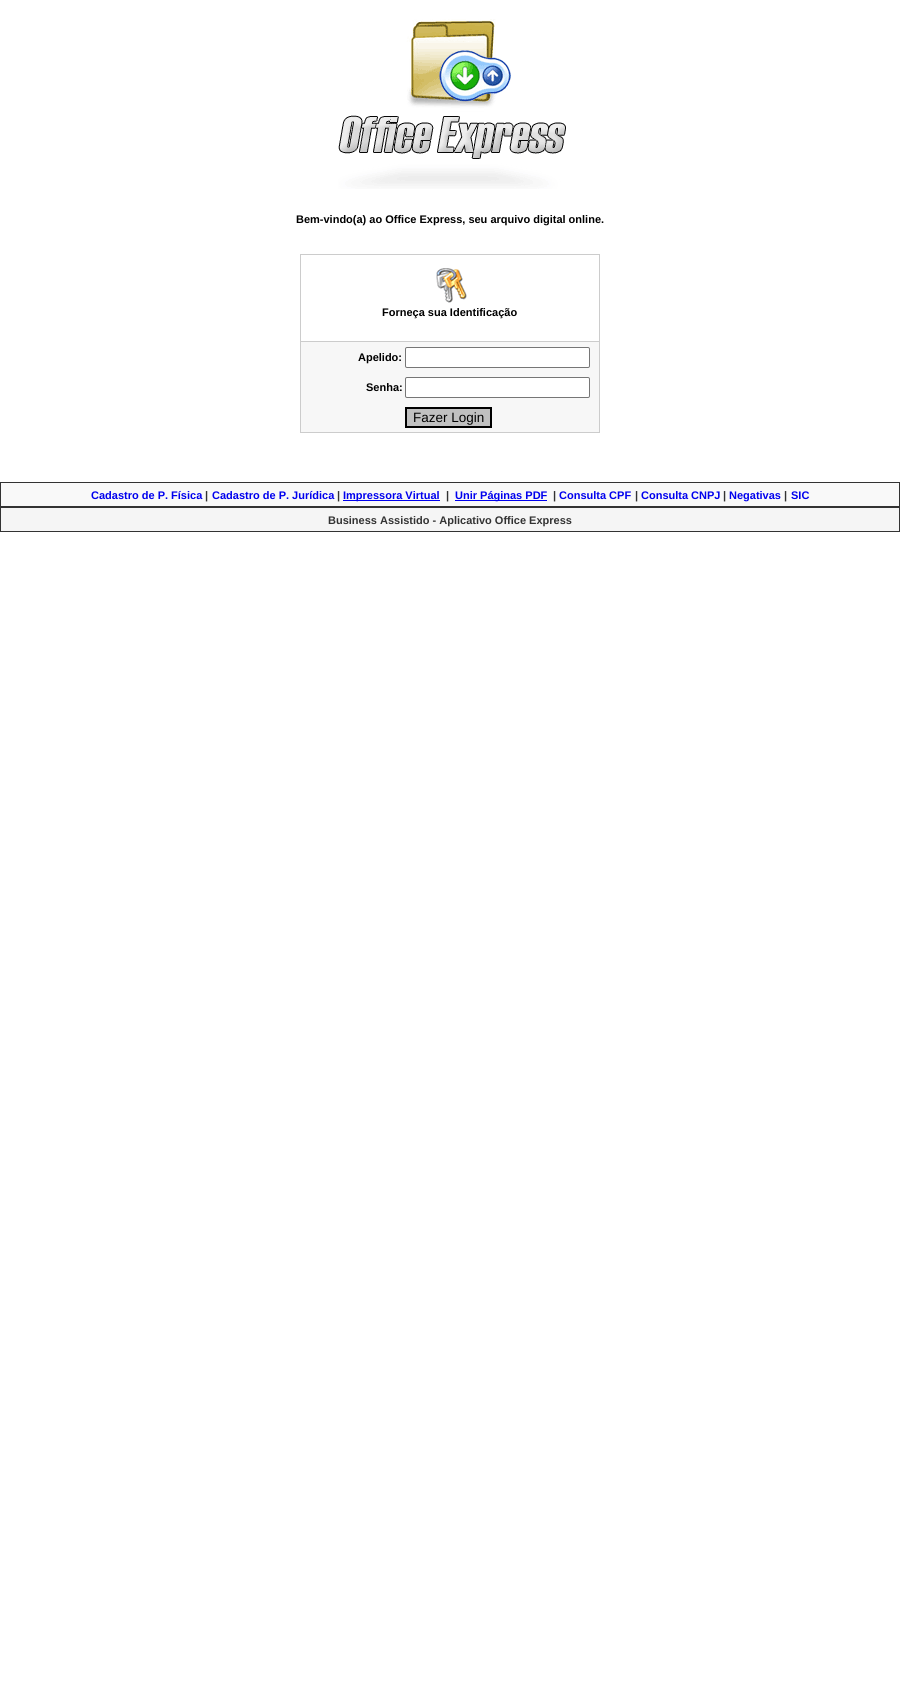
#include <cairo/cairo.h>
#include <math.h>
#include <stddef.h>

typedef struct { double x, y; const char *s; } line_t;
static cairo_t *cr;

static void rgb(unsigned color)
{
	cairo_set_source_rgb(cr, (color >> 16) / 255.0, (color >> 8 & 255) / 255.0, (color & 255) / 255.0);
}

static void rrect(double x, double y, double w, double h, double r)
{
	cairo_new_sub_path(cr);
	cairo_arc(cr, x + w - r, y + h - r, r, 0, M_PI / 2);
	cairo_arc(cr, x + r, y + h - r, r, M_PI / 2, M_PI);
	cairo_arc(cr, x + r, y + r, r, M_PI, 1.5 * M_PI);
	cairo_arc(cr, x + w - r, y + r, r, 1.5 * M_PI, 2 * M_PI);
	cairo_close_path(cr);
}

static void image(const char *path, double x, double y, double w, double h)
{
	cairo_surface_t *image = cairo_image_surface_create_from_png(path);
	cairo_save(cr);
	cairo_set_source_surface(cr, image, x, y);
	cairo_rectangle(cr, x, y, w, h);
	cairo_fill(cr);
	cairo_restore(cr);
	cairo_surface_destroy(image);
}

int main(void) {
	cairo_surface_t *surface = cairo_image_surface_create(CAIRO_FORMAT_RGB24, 900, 1706);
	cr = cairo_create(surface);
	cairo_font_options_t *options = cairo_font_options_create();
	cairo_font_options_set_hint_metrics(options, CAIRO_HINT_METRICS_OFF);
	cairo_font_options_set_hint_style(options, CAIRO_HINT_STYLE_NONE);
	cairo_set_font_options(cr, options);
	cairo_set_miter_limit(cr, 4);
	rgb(0xffffff);
	cairo_paint(cr);
	image("img/1.png", 338, 19, 228, 170);
	rgb(0xcccccc);
	cairo_rectangle(cr, 300, 254, 300, 179);
	cairo_fill(cr);
	rgb(0xffffff);
	cairo_rectangle(cr, 301, 255, 298, 86);
	cairo_fill(cr);
	image("img/2.png", 436, 268, 31, 35);
	rgb(0xf7f7f7);
	cairo_rectangle(cr, 301, 342, 298, 90);
	cairo_fill(cr);
	rgb(0xffffff);
	rrect(405.5, 347.5, 184, 20, 1.5);
	cairo_fill_preserve(cr);
	rgb(0x767676);
	cairo_set_line_width(cr, 1);
	cairo_stroke(cr);
	rgb(0xffffff);
	rrect(405.5, 377.5, 184, 20, 1.5);
	cairo_fill_preserve(cr);
	rgb(0x767676);
	cairo_stroke(cr);
	rgb(0xc0c0c0);
	cairo_rectangle(cr, 406, 408, 85, 19);
	cairo_fill_preserve(cr);
	rgb(0x000000);
	cairo_set_line_width(cr, 2);
	cairo_stroke(cr);
	rgb(0xf9f9f9);
	cairo_rectangle(cr, 0.5, 482.5, 899, 24);
	cairo_fill_preserve(cr);
	rgb(0x333333);
	cairo_set_line_width(cr, 1);
	cairo_stroke(cr);
	rgb(0x0000ee);
	cairo_rectangle(cr, 343, 500, 97, 1);
	cairo_fill(cr);
	cairo_rectangle(cr, 455, 500, 92, 1);
	cairo_fill(cr);
	rgb(0xf5f5f5);
	cairo_rectangle(cr, 0.5, 507.5, 899, 24);
	cairo_fill_preserve(cr);
	rgb(0x333333);
	cairo_stroke(cr);
	cairo_select_font_face(cr, "Liberation Sans", CAIRO_FONT_SLANT_NORMAL, CAIRO_FONT_WEIGHT_BOLD);
	cairo_set_font_size(cr, 11);
	rgb(0x000000);
	{
		static const line_t items[] = {
			{296, 223, "Bem-vindo(a) ao Office Express, seu arquivo digital online."},
			{382, 316, "Forneça sua Identificação"},
			{358, 361, "Apelido:"},
			{366, 391, "Senha:"},
		};
		for (size_t i = 0; i < sizeof items / sizeof *items; i++) {
			cairo_move_to(cr, items[i].x, items[i].y);
			cairo_show_text(cr, items[i].s);
		}
	}
	cairo_select_font_face(cr, "Liberation Sans", CAIRO_FONT_SLANT_NORMAL, CAIRO_FONT_WEIGHT_NORMAL);
	cairo_set_font_size(cr, 13.5);
	cairo_move_to(cr, 413, 422);
	cairo_show_text(cr, "Fazer Login");
	cairo_select_font_face(cr, "Liberation Sans", CAIRO_FONT_SLANT_NORMAL, CAIRO_FONT_WEIGHT_BOLD);
	cairo_set_font_size(cr, 11);
	rgb(0x0000ee);
	cairo_move_to(cr, 91, 499);
	cairo_show_text(cr, "Cadastro de P. Física");
	rgb(0x333333);
	cairo_move_to(cr, 205, 499);
	cairo_show_text(cr, "|");
	rgb(0x0000ee);
	cairo_move_to(cr, 212, 499);
	cairo_show_text(cr, "Cadastro de P. Jurídica");
	rgb(0x333333);
	cairo_move_to(cr, 337, 499);
	cairo_show_text(cr, "|");
	rgb(0x0000ee);
	cairo_move_to(cr, 343, 499);
	cairo_show_text(cr, "Impressora Virtual");
	rgb(0x333333);
	cairo_move_to(cr, 446, 499);
	cairo_show_text(cr, "|");
	rgb(0x0000ee);
	cairo_move_to(cr, 455, 499);
	cairo_show_text(cr, "Unir Páginas PDF");
	rgb(0x333333);
	cairo_move_to(cr, 553, 499);
	cairo_show_text(cr, "|");
	rgb(0x0000ee);
	cairo_move_to(cr, 559, 499);
	cairo_show_text(cr, "Consulta CPF");
	rgb(0x333333);
	cairo_move_to(cr, 635, 499);
	cairo_show_text(cr, "|");
	rgb(0x0000ee);
	cairo_move_to(cr, 641, 499);
	cairo_show_text(cr, "Consulta CNPJ");
	rgb(0x333333);
	cairo_move_to(cr, 723, 499);
	cairo_show_text(cr, "|");
	rgb(0x0000ee);
	cairo_move_to(cr, 729, 499);
	cairo_show_text(cr, "Negativas");
	rgb(0x333333);
	cairo_move_to(cr, 784, 499);
	cairo_show_text(cr, "|");
	rgb(0x0000ee);
	cairo_move_to(cr, 791, 499);
	cairo_show_text(cr, "SIC");
	rgb(0x333333);
	cairo_move_to(cr, 328, 524);
	cairo_show_text(cr, "Business Assistido - Aplicativo Office Express");
	cairo_surface_write_to_png(surface, "page.png");
	cairo_font_options_destroy(options);
	cairo_destroy(cr);
	cairo_surface_destroy(surface);
	return 0;
}
